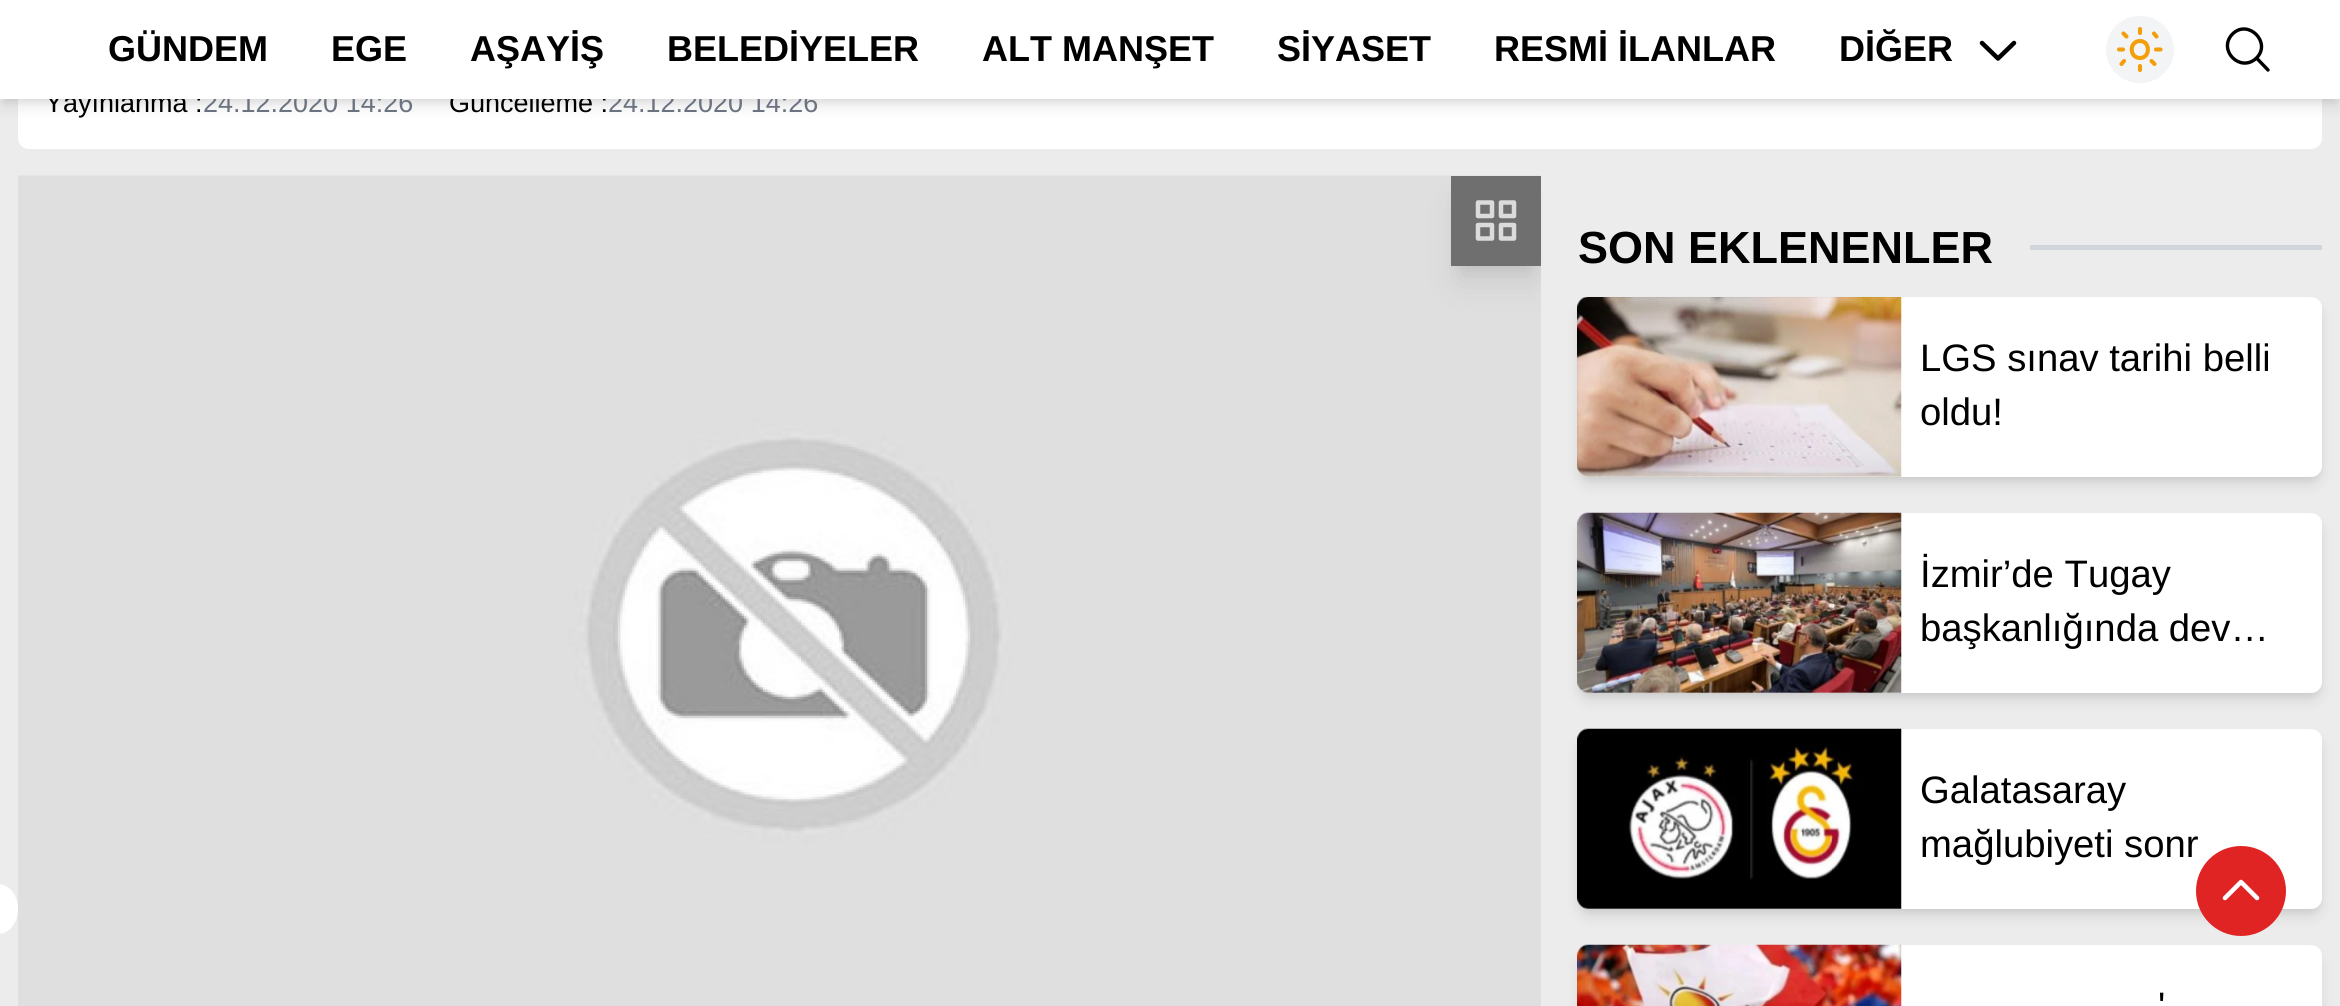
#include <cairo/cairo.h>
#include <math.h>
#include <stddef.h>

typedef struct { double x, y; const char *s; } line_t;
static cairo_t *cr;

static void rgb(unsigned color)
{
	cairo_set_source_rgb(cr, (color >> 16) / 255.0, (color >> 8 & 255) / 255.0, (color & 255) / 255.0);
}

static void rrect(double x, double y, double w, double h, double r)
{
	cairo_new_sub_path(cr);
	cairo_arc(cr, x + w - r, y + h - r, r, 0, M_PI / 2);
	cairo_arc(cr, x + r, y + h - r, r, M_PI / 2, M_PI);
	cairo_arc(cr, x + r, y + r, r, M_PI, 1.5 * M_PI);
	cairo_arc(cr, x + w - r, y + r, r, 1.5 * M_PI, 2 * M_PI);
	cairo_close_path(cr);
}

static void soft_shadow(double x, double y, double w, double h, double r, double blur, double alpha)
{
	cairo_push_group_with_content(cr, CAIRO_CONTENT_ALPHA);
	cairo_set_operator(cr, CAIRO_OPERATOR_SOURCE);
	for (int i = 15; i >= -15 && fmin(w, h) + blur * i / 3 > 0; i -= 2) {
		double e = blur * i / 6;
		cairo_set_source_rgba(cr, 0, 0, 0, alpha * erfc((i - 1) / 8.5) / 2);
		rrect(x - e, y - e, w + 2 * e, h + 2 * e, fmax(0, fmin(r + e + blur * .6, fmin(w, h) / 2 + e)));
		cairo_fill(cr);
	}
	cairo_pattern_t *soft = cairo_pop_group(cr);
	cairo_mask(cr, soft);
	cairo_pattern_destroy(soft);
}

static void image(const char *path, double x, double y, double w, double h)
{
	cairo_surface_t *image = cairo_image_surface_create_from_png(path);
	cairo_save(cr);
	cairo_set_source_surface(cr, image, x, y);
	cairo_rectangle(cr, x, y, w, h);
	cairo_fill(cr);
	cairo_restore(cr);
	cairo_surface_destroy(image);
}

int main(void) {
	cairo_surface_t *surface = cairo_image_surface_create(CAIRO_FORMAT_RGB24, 2340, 1006);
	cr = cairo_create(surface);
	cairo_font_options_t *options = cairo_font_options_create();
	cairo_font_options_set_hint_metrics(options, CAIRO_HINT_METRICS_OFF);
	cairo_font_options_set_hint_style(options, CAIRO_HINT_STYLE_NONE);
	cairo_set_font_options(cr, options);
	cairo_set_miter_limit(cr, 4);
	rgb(0xececec);
	cairo_paint(cr);
	rgb(0xffffff);
	rrect(18, -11, 2304, 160, 11);
	cairo_fill(cr);
	rgb(0x000000);
	soft_shadow(5, 9, 2331, 90, 0, 4.5, 0.1);
	soft_shadow(2, 11, 2336, 95, 0, 7, 0.1);
	rgb(0xffffff);
	cairo_new_path(cr);
	cairo_move_to(cr, -2, 884);
	cairo_curve_to(cr, 9, 884, 18, 895, 18, 909);
	cairo_curve_to(cr, 18, 923, 9, 934, -2, 934);
	cairo_curve_to(cr, -13, 934, -22, 923, -22, 909);
	cairo_curve_to(cr, -22, 895, -13, 884, -2, 884);
	cairo_close_path(cr);
	cairo_fill(cr);
	image("img/1.png", 18, 175, 1523, 831);
	cairo_save(cr);
	cairo_set_fill_rule(cr, CAIRO_FILL_RULE_EVEN_ODD);
	cairo_new_path(cr);
	cairo_move_to(cr, 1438, 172);
	cairo_line_to(cr, 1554, 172);
	cairo_line_to(cr, 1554, 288);
	cairo_line_to(cr, 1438, 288);
	cairo_close_path(cr);
	cairo_move_to(cr, 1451, 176);
	cairo_line_to(cr, 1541, 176);
	cairo_line_to(cr, 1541, 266);
	cairo_line_to(cr, 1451, 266);
	cairo_close_path(cr);
	cairo_clip(cr);
	rgb(0x000000);
	soft_shadow(1460, 194, 72, 72, 0, 7, 0.1);
	cairo_restore(cr);
	rgb(0x000000);
	soft_shadow(1582, 306, 736, 171, 7, 4.5, 0.1);
	soft_shadow(1580, 308, 740, 176, 9, 7, 0.1);
	rgb(0xffffff);
	rrect(1577, 297, 745, 180, 11);
	cairo_fill(cr);
	image("img/2.png", 1577, 297, 325, 180);
	cairo_save(cr);
	cairo_rectangle(cr, 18, 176, 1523, 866);
	cairo_clip(cr);
	cairo_set_fill_rule(cr, CAIRO_FILL_RULE_EVEN_ODD);
	cairo_new_path(cr);
	cairo_move_to(cr, 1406, 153);
	cairo_line_to(cr, 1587, 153);
	cairo_line_to(cr, 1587, 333);
	cairo_line_to(cr, 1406, 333);
	cairo_close_path(cr);
	cairo_move_to(cr, 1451, 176);
	cairo_line_to(cr, 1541, 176);
	cairo_line_to(cr, 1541, 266);
	cairo_line_to(cr, 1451, 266);
	cairo_close_path(cr);
	cairo_clip(cr);
	rgb(0x000000);
	soft_shadow(1458, 205, 77, 76, 0, 17, 0.1);
	cairo_restore(cr);
	cairo_set_source_rgba(cr, 0, 0, 0, 0.5);
	cairo_rectangle(cr, 1451, 176, 90, 90);
	cairo_fill(cr);
	cairo_new_path(cr);
	cairo_move_to(cr, 1478, 202.5);
	cairo_line_to(cr, 1492, 202.5);
	cairo_line_to(cr, 1492, 216);
	cairo_line_to(cr, 1478, 216);
	cairo_close_path(cr);
	cairo_move_to(cr, 1501, 202.5);
	cairo_line_to(cr, 1514, 202.5);
	cairo_line_to(cr, 1514, 216);
	cairo_line_to(cr, 1501, 216);
	cairo_close_path(cr);
	cairo_move_to(cr, 1478, 225);
	cairo_line_to(cr, 1492, 225);
	cairo_line_to(cr, 1492, 238.5);
	cairo_line_to(cr, 1478, 238.5);
	cairo_close_path(cr);
	cairo_move_to(cr, 1501, 225);
	cairo_line_to(cr, 1514, 225);
	cairo_line_to(cr, 1514, 238.5);
	cairo_line_to(cr, 1501, 238.5);
	cairo_close_path(cr);
	rgb(0xdbdbdb);
	cairo_set_line_width(cr, 4.5);
	cairo_set_line_cap(cr, CAIRO_LINE_CAP_ROUND);
	cairo_set_line_join(cr, CAIRO_LINE_JOIN_ROUND);
	cairo_stroke(cr);
	rgb(0xd1d5db);
	cairo_rectangle(cr, 2030, 245, 292, 5);
	cairo_fill(cr);
	rgb(0x000000);
	soft_shadow(1582, 522, 736, 171, 7, 4.5, 0.1);
	soft_shadow(1580, 524, 740, 176, 9, 7, 0.1);
	rgb(0xffffff);
	rrect(1577, 513, 745, 180, 11);
	cairo_fill(cr);
	image("img/3.png", 1577, 512, 325, 181);
	rgb(0x000000);
	soft_shadow(1582, 738, 736, 171, 7, 4.5, 0.1);
	soft_shadow(1580, 740, 740, 176, 9, 7, 0.1);
	rgb(0xffffff);
	rrect(1577, 729, 745, 180, 11);
	cairo_fill(cr);
	image("img/4.png", 1577, 728, 325, 181);
	rgb(0x000000);
	soft_shadow(1580, 956, 740, 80, 9, 7, 0.1);
	rgb(0xffffff);
	rrect(1577, 945, 745, 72, 11);
	cairo_fill(cr);
	image("img/5.png", 1577, 944, 325, 62);
	cairo_select_font_face(cr, "Liberation Sans", CAIRO_FONT_SLANT_NORMAL, CAIRO_FONT_WEIGHT_NORMAL);
	cairo_set_font_size(cr, 27);
	rgb(0x000000);
	cairo_move_to(cr, 45, 112);
	cairo_show_text(cr, "Yayınlanma :");
	rgb(0x6b7280);
	cairo_move_to(cr, 203, 112);
	cairo_show_text(cr, "24.12.2020 14:26");
	rgb(0x000000);
	cairo_move_to(cr, 449, 112);
	cairo_show_text(cr, "Güncelleme :");
	rgb(0x6b7280);
	cairo_move_to(cr, 608, 112);
	cairo_show_text(cr, "24.12.2020 14:26");
	rgb(0xffffff);
	cairo_rectangle(cr, 0, 0, 2340, 99);
	cairo_fill(cr);
	rgb(0xf3f4f6);
	rrect(2106, 16, 68, 67, 33.5);
	cairo_fill(cr);
	cairo_new_path(cr);
	cairo_move_to(cr, 2140, 29);
	cairo_line_to(cr, 2140, 33);
	cairo_move_to(cr, 2140, 66);
	cairo_line_to(cr, 2140, 70);
	cairo_move_to(cr, 2160.5, 49.5);
	cairo_line_to(cr, 2156, 49.5);
	cairo_move_to(cr, 2123, 49.5);
	cairo_line_to(cr, 2119, 49.5);
	cairo_move_to(cr, 2121.5, 64);
	cairo_line_to(cr, 2124, 61);
	cairo_move_to(cr, 2151.5, 61);
	cairo_line_to(cr, 2154.5, 64);
	cairo_move_to(cr, 2123.5, 33.5);
	cairo_line_to(cr, 2126.5, 36.5);
	cairo_move_to(cr, 2154, 33.5);
	cairo_line_to(cr, 2156.5, 36.5);
	cairo_move_to(cr, 2140, 41);
	cairo_curve_to(cr, 2129, 41, 2129, 58, 2140, 58);
	cairo_curve_to(cr, 2150.5, 58, 2150.5, 41, 2140, 41);
	cairo_close_path(cr);
	rgb(0xf59e0b);
	cairo_set_line_width(cr, 4.1);
	cairo_stroke(cr);
	cairo_new_path(cr);
	cairo_move_to(cr, 2014, 43);
	cairo_line_to(cr, 1998, 58.5);
	cairo_line_to(cr, 1982, 43);
	rgb(0x000000);
	cairo_set_line_width(cr, 4.5);
	cairo_stroke(cr);
	cairo_select_font_face(cr, "Liberation Sans", CAIRO_FONT_SLANT_NORMAL, CAIRO_FONT_WEIGHT_BOLD);
	cairo_set_font_size(cr, 36);
	{
		static const line_t items[] = {
			{1839, 61, "DİĞER"},
			{1494, 61, "RESMİ İLANLAR"},
			{1277, 61, "SİYASET"},
			{982, 61, "ALT MANŞET"},
			{667, 61, "BELEDİYELER"},
			{470, 61, "AŞAYİŞ"},
			{331, 61, "EGE"},
			{108, 61, "GÜNDEM"},
		};
		for (size_t i = 0; i < sizeof items / sizeof *items; i++) {
			cairo_move_to(cr, items[i].x, items[i].y);
			cairo_show_text(cr, items[i].s);
		}
	}
	cairo_new_path(cr);
	cairo_move_to(cr, 2268, 70);
	cairo_line_to(cr, 2256.5, 58);
	cairo_move_to(cr, 2256.5, 58);
	cairo_curve_to(cr, 2272, 42.5, 2248, 18.5, 2232.5, 34);
	cairo_curve_to(cr, 2217, 50, 2240.5, 73.5, 2256.5, 58);
	cairo_close_path(cr);
	cairo_set_line_width(cr, 3.4);
	cairo_stroke(cr);
	cairo_set_font_size(cr, 45);
	cairo_move_to(cr, 1578, 263);
	cairo_show_text(cr, "SON EKLENENLER");
	cairo_select_font_face(cr, "Liberation Sans", CAIRO_FONT_SLANT_NORMAL, CAIRO_FONT_WEIGHT_NORMAL);
	cairo_set_font_size(cr, 38.25);
	{
		static const line_t items[] = {
			{1920, 371, "LGS sınav tarihi belli"},
			{1920, 425, "oldu!"},
			{1920, 587, "İzmir’de Tugay"},
			{1920, 641, "başkanlığında dev…"},
			{1920, 803, "Galatasaray"},
			{1920, 857, "mağlubiyeti sonr"},
			{2158, 1019, "'"},
		};
		for (size_t i = 0; i < sizeof items / sizeof *items; i++) {
			cairo_move_to(cr, items[i].x, items[i].y);
			cairo_show_text(cr, items[i].s);
		}
	}
	rgb(0xe02424);
	cairo_new_path(cr);
	cairo_arc(cr, 2241, 891, 45, 0, 2 * M_PI);
	cairo_fill(cr);
	cairo_new_path(cr);
	cairo_move_to(cr, 2225, 898);
	cairo_line_to(cr, 2241, 882);
	cairo_line_to(cr, 2257, 898);
	rgb(0xffffff);
	cairo_set_line_width(cr, 4.5);
	cairo_stroke(cr);
	cairo_surface_write_to_png(surface, "page.png");
	cairo_font_options_destroy(options);
	cairo_destroy(cr);
	cairo_surface_destroy(surface);
	return 0;
}
